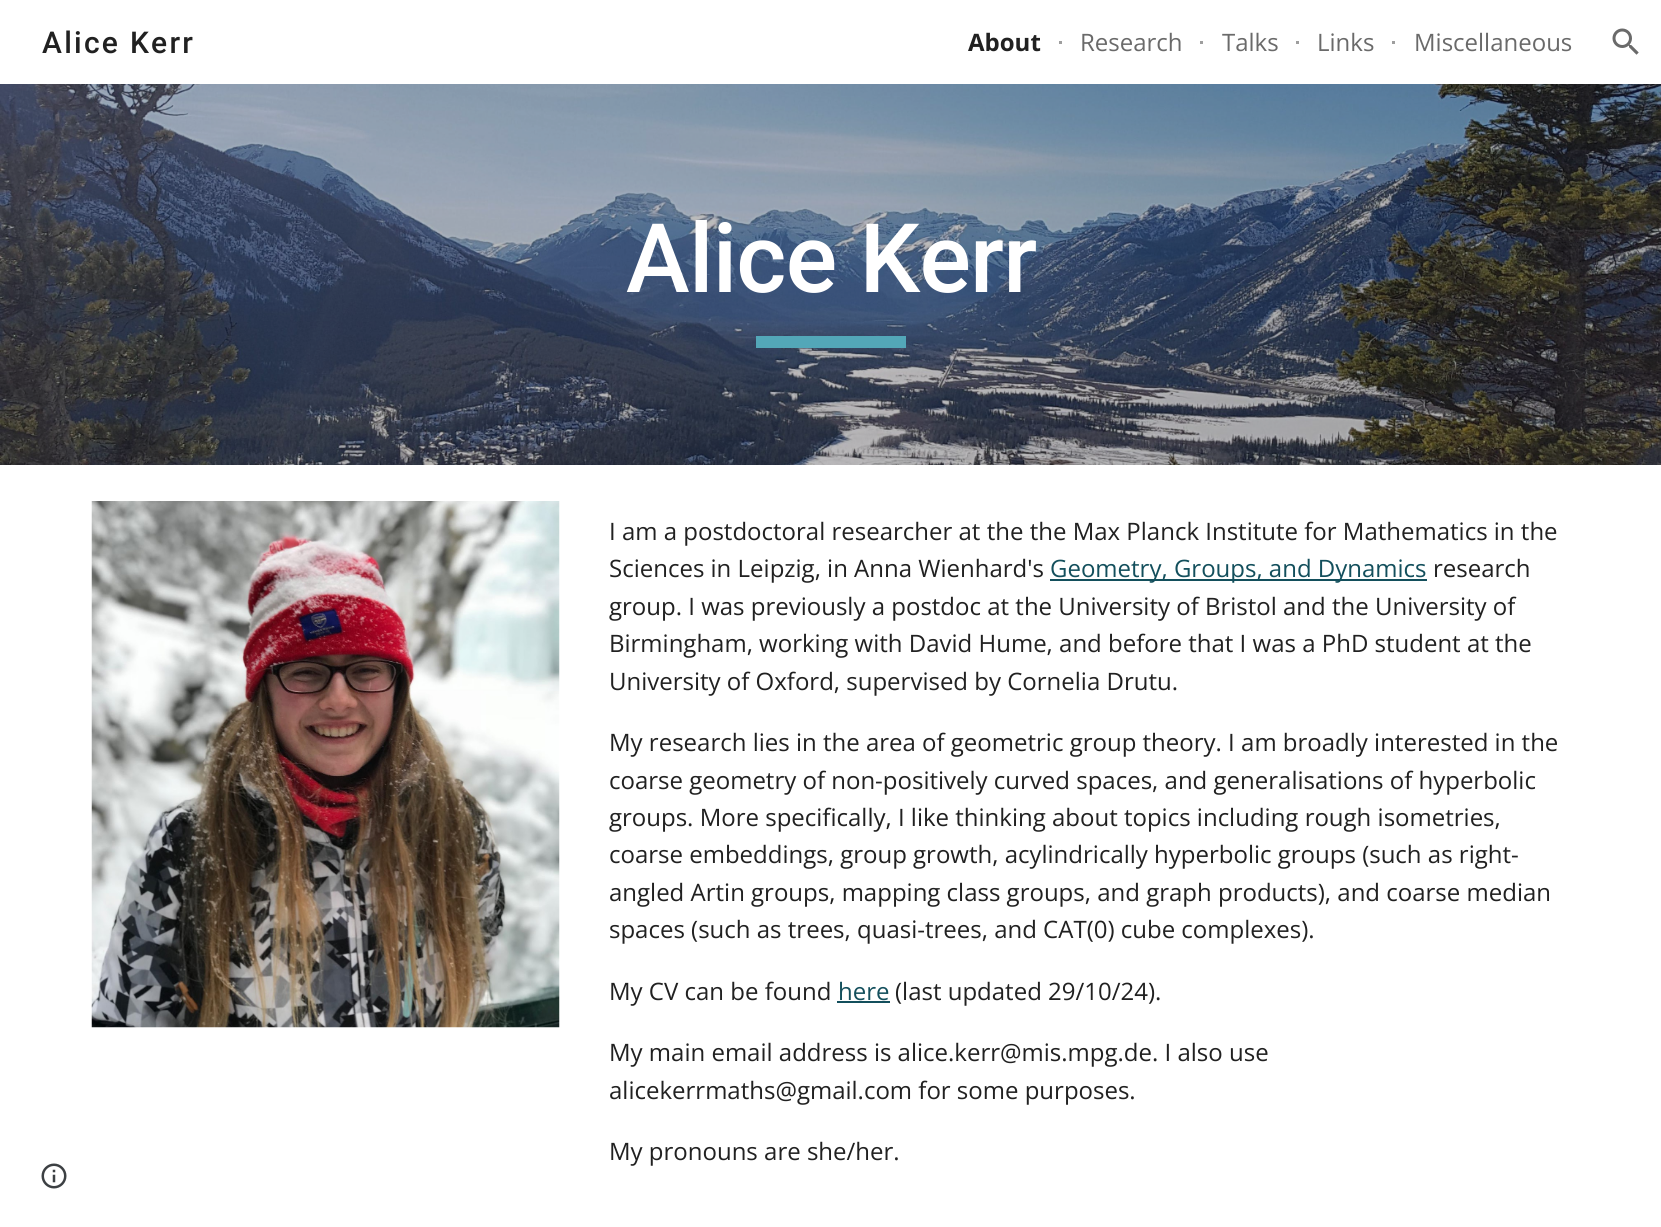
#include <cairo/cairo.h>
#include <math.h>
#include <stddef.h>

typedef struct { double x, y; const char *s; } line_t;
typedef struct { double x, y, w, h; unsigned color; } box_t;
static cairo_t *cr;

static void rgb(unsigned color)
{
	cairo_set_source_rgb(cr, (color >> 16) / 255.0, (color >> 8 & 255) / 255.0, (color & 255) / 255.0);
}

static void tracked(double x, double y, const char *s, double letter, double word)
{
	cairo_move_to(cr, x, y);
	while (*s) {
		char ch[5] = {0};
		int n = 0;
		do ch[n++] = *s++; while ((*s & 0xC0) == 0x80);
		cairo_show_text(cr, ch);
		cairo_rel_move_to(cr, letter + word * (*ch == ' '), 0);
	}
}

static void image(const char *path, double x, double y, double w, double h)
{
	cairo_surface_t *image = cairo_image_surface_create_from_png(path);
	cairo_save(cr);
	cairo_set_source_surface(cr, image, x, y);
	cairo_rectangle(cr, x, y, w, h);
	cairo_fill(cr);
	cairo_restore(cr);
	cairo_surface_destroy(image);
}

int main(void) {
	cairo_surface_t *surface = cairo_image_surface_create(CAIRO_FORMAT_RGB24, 1661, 1227);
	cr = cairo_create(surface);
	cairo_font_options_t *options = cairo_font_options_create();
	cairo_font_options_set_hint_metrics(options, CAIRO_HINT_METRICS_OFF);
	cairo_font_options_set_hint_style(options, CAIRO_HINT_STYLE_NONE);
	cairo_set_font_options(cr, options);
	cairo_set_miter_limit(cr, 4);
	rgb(0xffffff);
	cairo_paint(cr);
	{
		static const box_t items[] = {
			{1059, 41, 3, 3, 0x9e9e9e},
			{1200, 41, 3, 3, 0x9e9e9e},
			{1296, 41, 3, 3, 0x9e9e9e},
			{1392, 41, 3, 3, 0x9e9e9e},
		};
		for (size_t i = 0; i < sizeof items / sizeof *items; i++) {
			rgb(items[i].color);
			cairo_rectangle(cr, items[i].x, items[i].y, items[i].w, items[i].h);
			cairo_fill(cr);
		}
	}
	image("img/1.png", 1612, 28, 27, 27);
	image("img/2.png", 0, 84, 1661, 381);
	rgb(0x53a7b8);
	cairo_rectangle(cr, 756, 336, 150, 12);
	cairo_fill(cr);
	image("img/3.png", 91, 501, 469, 527);
	rgb(0x134f5c);
	cairo_rectangle(cr, 1050, 579, 377, 2);
	cairo_fill(cr);
	cairo_rectangle(cr, 837, 1001, 53, 2);
	cairo_fill(cr);
	image("img/4.png", 41, 1163, 26, 26);
	cairo_select_font_face(cr, "Roboto Medium", CAIRO_FONT_SLANT_NORMAL, CAIRO_FONT_WEIGHT_NORMAL);
	cairo_set_font_size(cr, 30);
	rgb(0x212121);
	tracked(42, 53, "Alice Kerr", 2.25, 0);
	cairo_select_font_face(cr, "Open Sans", CAIRO_FONT_SLANT_NORMAL, CAIRO_FONT_WEIGHT_BOLD);
	cairo_set_font_size(cr, 24);
	cairo_move_to(cr, 968, 51);
	cairo_show_text(cr, "About");
	cairo_select_font_face(cr, "Open Sans", CAIRO_FONT_SLANT_NORMAL, CAIRO_FONT_WEIGHT_NORMAL);
	rgb(0x6a6a6a);
	{
		static const line_t items[] = {
			{1080, 51, "Research"},
			{1222, 51, "Talks"},
			{1317, 51, "Links"},
			{1414, 51, "Miscellaneous"},
		};
		for (size_t i = 0; i < sizeof items / sizeof *items; i++) {
			cairo_move_to(cr, items[i].x, items[i].y);
			cairo_show_text(cr, items[i].s);
		}
	}
	cairo_select_font_face(cr, "Roboto Medium", CAIRO_FONT_SLANT_NORMAL, CAIRO_FONT_WEIGHT_NORMAL);
	cairo_set_font_size(cr, 96);
	rgb(0xffffff);
	tracked(626, 292, "Alice Kerr", -0.75, 0);
	cairo_select_font_face(cr, "Open Sans", CAIRO_FONT_SLANT_NORMAL, CAIRO_FONT_WEIGHT_NORMAL);
	cairo_set_font_size(cr, 24);
	rgb(0x212121);
	cairo_move_to(cr, 609, 540);
	cairo_show_text(cr, "I am a postdoctoral researcher at the the Max Planck Institute for Mathematics in the");
	cairo_move_to(cr, 609, 577);
	cairo_show_text(cr, "Sciences in Leipzig, in Anna Wienhard's");
	rgb(0x134f5c);
	cairo_move_to(cr, 1050, 577);
	cairo_show_text(cr, "Geometry, Groups, and Dynamics");
	rgb(0x212121);
	{
		static const line_t items[] = {
			{1433, 577, "research"},
			{609, 615, "group. I was previously a postdoc at the University of Bristol and the University of"},
			{609, 652, "Birmingham, working with David Hume, and before that I was a PhD student at the"},
			{609, 690, "University of Oxford, supervised by Cornelia Drutu."},
			{609, 751, "My research lies in the area of geometric group theory. I am broadly interested in the"},
			{609, 789, "coarse geometry of non-positively curved spaces, and generalisations of hyperbolic"},
			{609, 826, "groups. More specifically, I like thinking about topics including rough isometries,"},
			{609, 863, "coarse embeddings, group growth, acylindrically hyperbolic groups (such as right-"},
			{609, 901, "angled Artin groups, mapping class groups, and graph products), and coarse median"},
			{609, 938, "spaces (such as trees, quasi-trees, and CAT(0) cube complexes)."},
			{609, 1000, "My CV can be found"},
		};
		for (size_t i = 0; i < sizeof items / sizeof *items; i++) {
			cairo_move_to(cr, items[i].x, items[i].y);
			cairo_show_text(cr, items[i].s);
		}
	}
	rgb(0x134f5c);
	cairo_move_to(cr, 838, 1000);
	cairo_show_text(cr, "here");
	rgb(0x212121);
	{
		static const line_t items[] = {
			{895, 1000, "(last updated 29/10/24)."},
			{609, 1061, "My main email address is alice.kerr@mis.mpg.de. I also use"},
			{609, 1099, "alicekerrmaths@gmail.com for some purposes."},
			{609, 1160, "My pronouns are she/her."},
		};
		for (size_t i = 0; i < sizeof items / sizeof *items; i++) {
			cairo_move_to(cr, items[i].x, items[i].y);
			cairo_show_text(cr, items[i].s);
		}
	}
	cairo_surface_write_to_png(surface, "page.png");
	cairo_font_options_destroy(options);
	cairo_destroy(cr);
	cairo_surface_destroy(surface);
	return 0;
}
